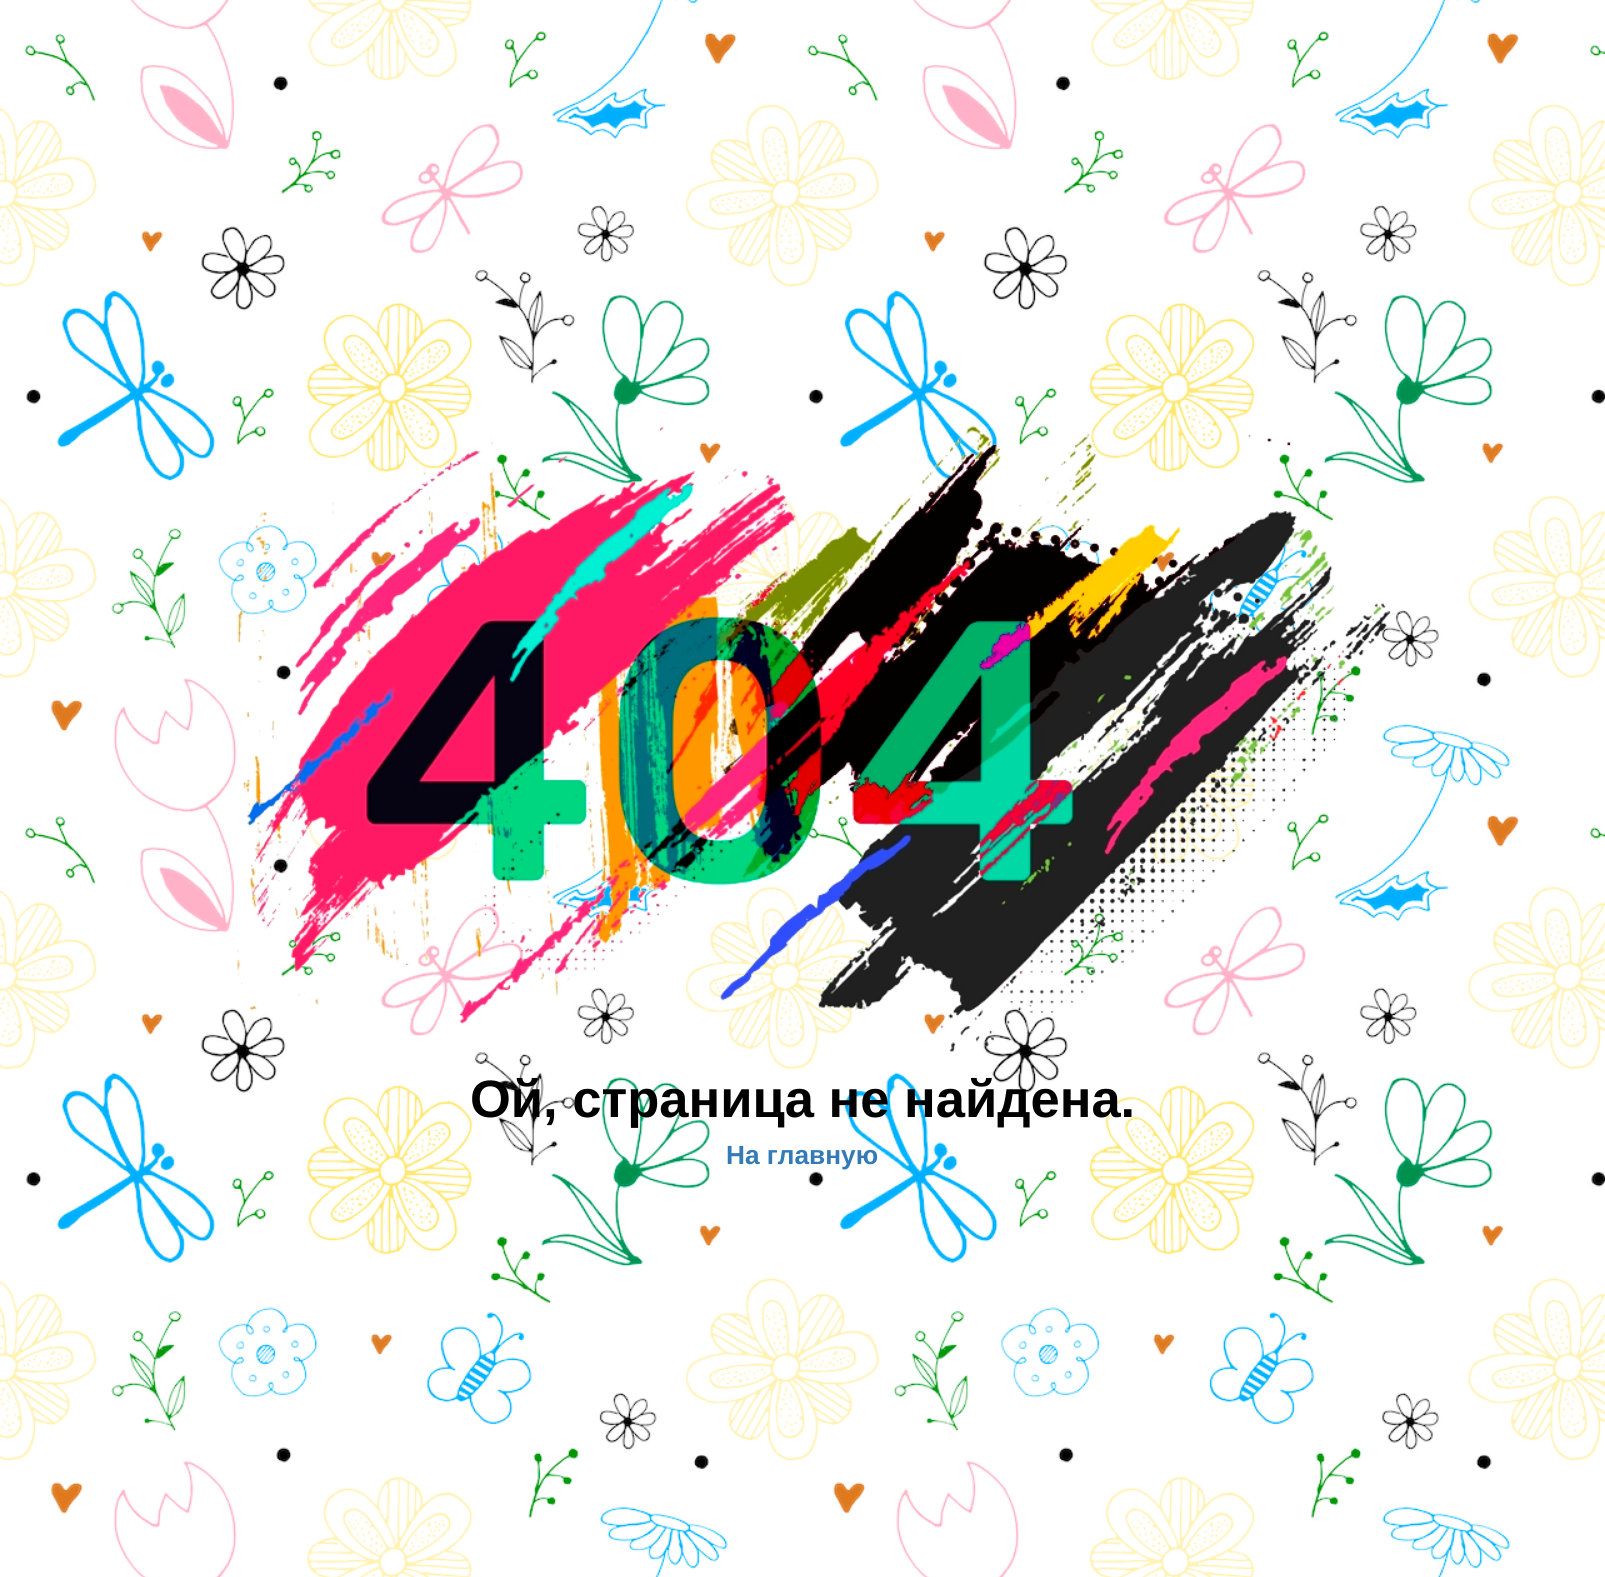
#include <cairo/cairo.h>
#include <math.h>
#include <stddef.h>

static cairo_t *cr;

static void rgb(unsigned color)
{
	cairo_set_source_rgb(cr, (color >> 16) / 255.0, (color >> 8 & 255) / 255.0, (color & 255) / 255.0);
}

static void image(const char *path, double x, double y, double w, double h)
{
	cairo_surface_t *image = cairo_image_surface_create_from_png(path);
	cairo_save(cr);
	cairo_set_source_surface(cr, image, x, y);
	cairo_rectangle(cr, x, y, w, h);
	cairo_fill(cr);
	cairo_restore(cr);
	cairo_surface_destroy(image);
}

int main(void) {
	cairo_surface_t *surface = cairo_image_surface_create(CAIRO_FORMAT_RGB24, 1605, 1577);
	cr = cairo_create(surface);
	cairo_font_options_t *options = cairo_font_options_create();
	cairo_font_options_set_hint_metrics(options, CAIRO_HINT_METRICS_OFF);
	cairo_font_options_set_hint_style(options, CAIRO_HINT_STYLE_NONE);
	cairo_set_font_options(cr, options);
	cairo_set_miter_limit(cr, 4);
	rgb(0xffffff);
	cairo_paint(cr);
	image("img/1.png", 0, 0, 1605, 1577);
	image("img/2.png", 237, 426, 1154, 626);
	cairo_select_font_face(cr, "Liberation Sans", CAIRO_FONT_SLANT_NORMAL, CAIRO_FONT_WEIGHT_BOLD);
	cairo_set_font_size(cr, 52.5);
	rgb(0x000000);
	cairo_move_to(cr, 470, 1117);
	cairo_show_text(cr, "Ой, страница не найдена.");
	cairo_set_font_size(cr, 26.25);
	rgb(0x337ab7);
	cairo_move_to(cr, 726, 1164);
	cairo_show_text(cr, "На главную");
	cairo_surface_write_to_png(surface, "page.png");
	cairo_font_options_destroy(options);
	cairo_destroy(cr);
	cairo_surface_destroy(surface);
	return 0;
}
